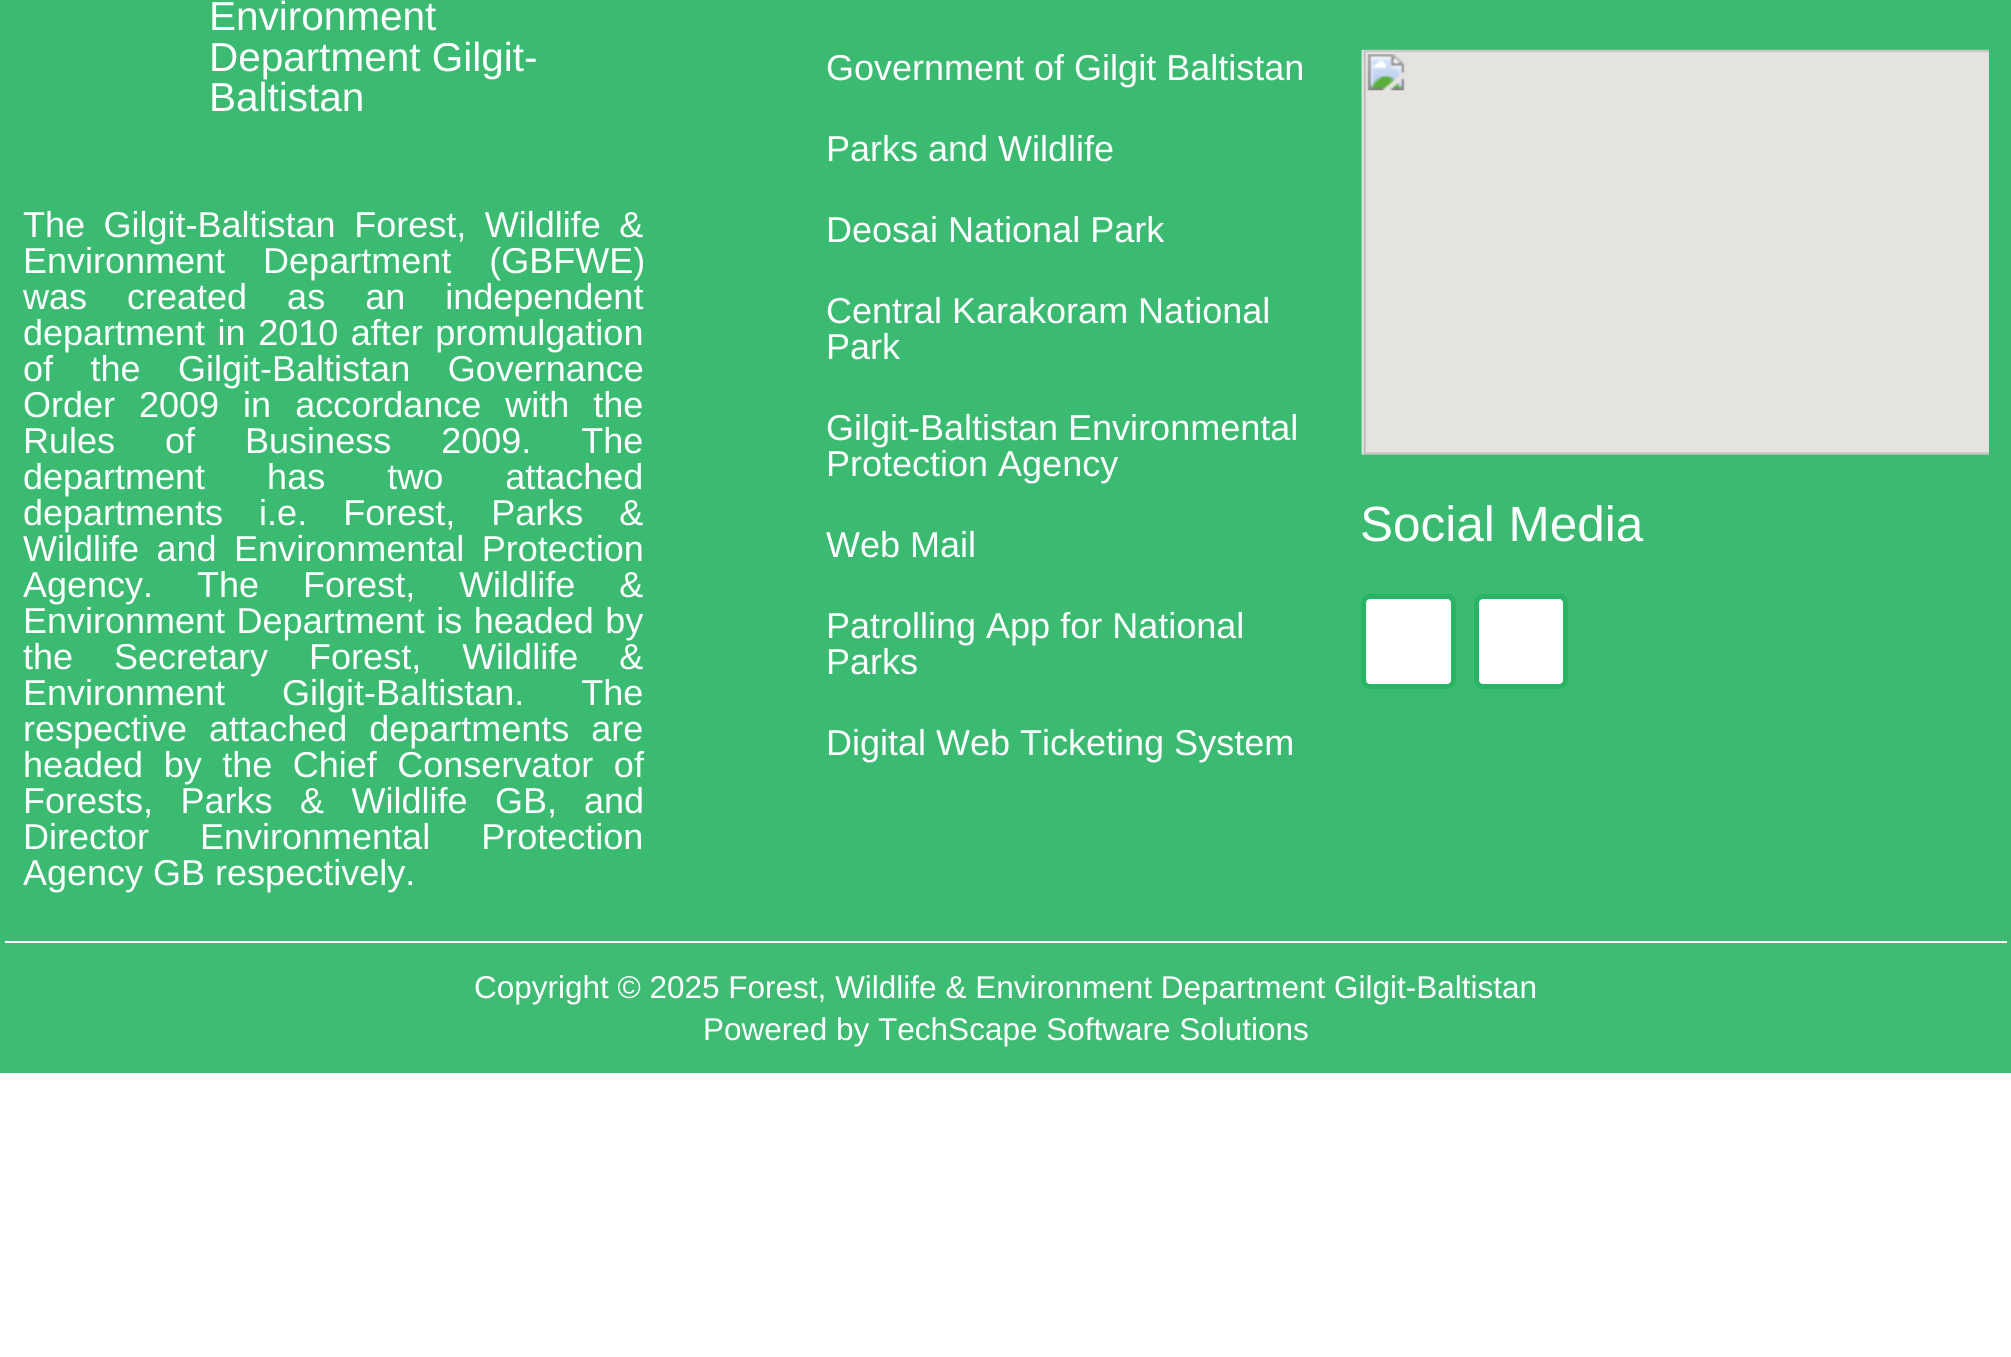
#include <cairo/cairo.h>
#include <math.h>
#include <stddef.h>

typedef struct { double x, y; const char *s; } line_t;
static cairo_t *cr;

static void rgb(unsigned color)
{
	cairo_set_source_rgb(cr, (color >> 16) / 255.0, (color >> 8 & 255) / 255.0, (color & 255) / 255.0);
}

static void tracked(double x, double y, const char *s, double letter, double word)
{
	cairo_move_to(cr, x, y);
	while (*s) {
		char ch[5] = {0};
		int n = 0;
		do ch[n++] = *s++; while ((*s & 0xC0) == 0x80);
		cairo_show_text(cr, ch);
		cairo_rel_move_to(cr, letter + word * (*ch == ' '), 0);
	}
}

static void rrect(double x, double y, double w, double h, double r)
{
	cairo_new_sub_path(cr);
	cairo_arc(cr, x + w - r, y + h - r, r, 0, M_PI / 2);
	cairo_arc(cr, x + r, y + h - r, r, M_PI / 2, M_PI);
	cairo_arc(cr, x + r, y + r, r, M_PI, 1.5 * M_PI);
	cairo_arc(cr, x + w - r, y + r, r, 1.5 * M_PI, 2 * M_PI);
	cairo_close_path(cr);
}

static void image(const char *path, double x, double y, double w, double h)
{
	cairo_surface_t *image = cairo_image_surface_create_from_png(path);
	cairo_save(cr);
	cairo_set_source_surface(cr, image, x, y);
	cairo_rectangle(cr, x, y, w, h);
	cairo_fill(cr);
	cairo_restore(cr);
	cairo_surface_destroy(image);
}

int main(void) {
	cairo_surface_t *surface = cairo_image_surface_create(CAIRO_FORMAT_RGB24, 2011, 1357);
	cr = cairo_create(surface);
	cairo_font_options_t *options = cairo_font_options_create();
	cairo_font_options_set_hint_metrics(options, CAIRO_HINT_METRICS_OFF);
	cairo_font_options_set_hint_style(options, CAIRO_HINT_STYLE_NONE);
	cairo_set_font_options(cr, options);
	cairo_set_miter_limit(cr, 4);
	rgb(0xffffff);
	cairo_paint(cr);
	rgb(0x3bbb71);
	cairo_rectangle(cr, 0, 0, 2011, 941);
	cairo_fill(cr);
	image("img/1.png", 1361, 49, 628, 406);
	rgb(0xffffff);
	rrect(1363.5, 596.5, 90, 90, 6.5);
	cairo_fill_preserve(cr);
	rgb(0x28b463);
	cairo_set_line_width(cr, 5);
	cairo_stroke(cr);
	rgb(0xffffff);
	rrect(1476.5, 596.5, 89, 90, 6.5);
	cairo_fill_preserve(cr);
	rgb(0x28b463);
	cairo_stroke(cr);
	rgb(0x3ebc73);
	cairo_rectangle(cr, 0, 941, 2011, 132);
	cairo_fill(cr);
	rgb(0xffffff);
	cairo_rectangle(cr, 5, 941, 2002, 2);
	cairo_fill(cr);
	cairo_select_font_face(cr, "Liberation Sans", CAIRO_FONT_SLANT_NORMAL, CAIRO_FONT_WEIGHT_NORMAL);
	cairo_set_font_size(cr, 40.5);
	{
		static const line_t items[] = {
			{209, 30, "Environment"},
			{209, 71, "Department Gilgit-"},
			{209, 111, "Baltistan"},
		};
		for (size_t i = 0; i < sizeof items / sizeof *items; i++) {
			cairo_move_to(cr, items[i].x, items[i].y);
			cairo_show_text(cr, items[i].s);
		}
	}
	cairo_set_font_size(cr, 36);
	tracked(23, 237, "The Gilgit-Baltistan Forest, Wildlife &", 0, 8.5);
	tracked(23, 273, "Environment Department (GBFWE)", 0, 28);
	tracked(23, 309, "was created as an independent", 0, 30);
	tracked(23, 345, "department in 2010 after promulgation", 0, 2.5);
	tracked(23, 381, "of the Gilgit-Baltistan Governance", 0, 27.5);
	tracked(23, 417, "Order 2009 in accordance with the", 0, 14);
	tracked(23, 453, "Rules of Business 2009. The", 0, 40);
	tracked(23, 489, "department has two attached", 0, 52);
	tracked(23, 525, "departments i.e. Forest, Parks &", 0, 26);
	tracked(23, 561, "Wildlife and Environmental Protection", 0, 7.5);
	tracked(23, 597, "Agency. The Forest, Wildlife &", 0, 34);
	tracked(23, 633, "Environment Department is headed by", 0, 1.5);
	tracked(23, 669, "the Secretary Forest, Wildlife &", 0, 31);
	tracked(23, 705, "Environment Gilgit-Baltistan. The", 0, 47);
	tracked(23, 741, "respective attached departments are", 0, 12);
	tracked(23, 777, "headed by the Chief Conservator of", 0, 10.5);
	tracked(23, 813, "Forests, Parks & Wildlife GB,", 0, 17.5);
	cairo_move_to(cr, 584, 813);
	cairo_show_text(cr, "and");
	tracked(23, 849, "Director Environmental Protection", 0, 41);
	{
		static const line_t items[] = {
			{23, 885, "Agency GB respectively."},
			{826, 80, "Government of Gilgit Baltistan"},
			{826, 161, "Parks and Wildlife"},
			{826, 242, "Deosai National Park"},
			{826, 323, "Central Karakoram National"},
			{826, 359, "Park"},
			{826, 440, "Gilgit-Baltistan Environmental"},
			{826, 476, "Protection Agency"},
			{826, 557, "Web Mail"},
			{826, 638, "Patrolling App for National"},
			{826, 674, "Parks"},
			{826, 755, "Digital Web Ticketing System"},
		};
		for (size_t i = 0; i < sizeof items / sizeof *items; i++) {
			cairo_move_to(cr, items[i].x, items[i].y);
			cairo_show_text(cr, items[i].s);
		}
	}
	cairo_set_font_size(cr, 49.5);
	cairo_move_to(cr, 1360, 541);
	cairo_show_text(cr, "Social Media");
	cairo_set_font_size(cr, 31.5);
	cairo_move_to(cr, 474, 998);
	cairo_show_text(cr, "Copyright © 2025 Forest, Wildlife & Environment Department Gilgit-Baltistan");
	cairo_move_to(cr, 703, 1040);
	cairo_show_text(cr, "Powered by TechScape Software Solutions");
	cairo_surface_write_to_png(surface, "page.png");
	cairo_font_options_destroy(options);
	cairo_destroy(cr);
	cairo_surface_destroy(surface);
	return 0;
}
